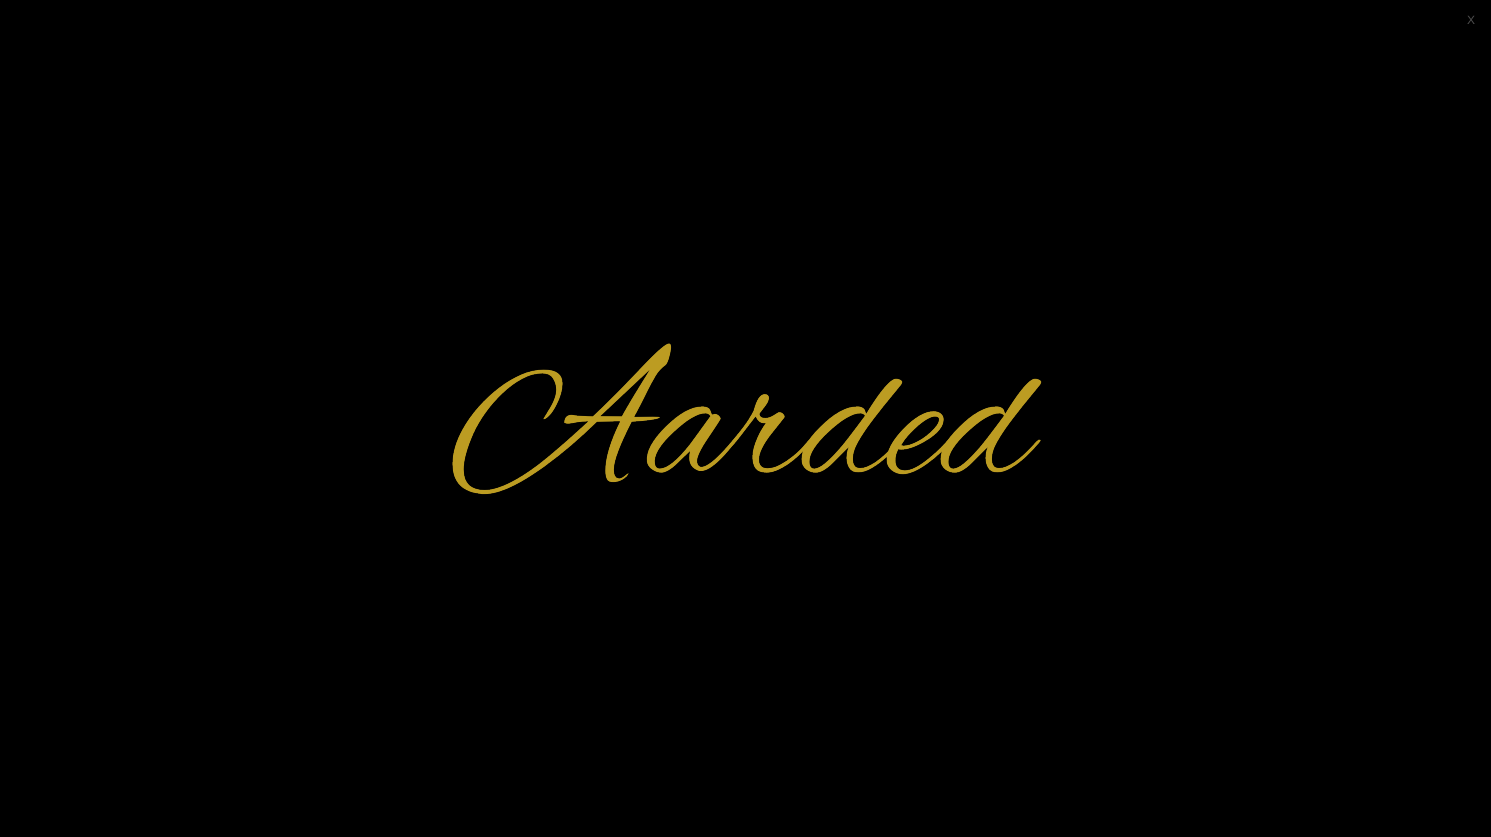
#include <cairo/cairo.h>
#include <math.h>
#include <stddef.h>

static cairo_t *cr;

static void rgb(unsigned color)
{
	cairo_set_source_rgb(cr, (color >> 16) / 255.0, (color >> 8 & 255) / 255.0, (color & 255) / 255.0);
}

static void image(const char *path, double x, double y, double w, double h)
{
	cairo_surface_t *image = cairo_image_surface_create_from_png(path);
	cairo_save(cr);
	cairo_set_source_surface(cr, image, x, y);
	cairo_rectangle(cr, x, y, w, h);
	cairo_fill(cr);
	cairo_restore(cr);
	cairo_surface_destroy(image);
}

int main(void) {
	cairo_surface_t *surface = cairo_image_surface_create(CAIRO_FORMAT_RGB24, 1491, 837);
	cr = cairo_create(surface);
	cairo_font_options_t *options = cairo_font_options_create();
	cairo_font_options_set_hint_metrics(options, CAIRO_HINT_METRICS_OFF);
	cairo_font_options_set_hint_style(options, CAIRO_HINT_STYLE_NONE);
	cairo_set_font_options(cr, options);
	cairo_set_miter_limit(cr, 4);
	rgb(0x000000);
	cairo_paint(cr);
	image("img/1.png", 452, 343, 590, 152);
	cairo_select_font_face(cr, "Liberation Sans", CAIRO_FONT_SLANT_NORMAL, CAIRO_FONT_WEIGHT_NORMAL);
	cairo_set_font_size(cr, 12);
	rgb(0x4d4d4d);
	cairo_move_to(cr, 1467, 24);
	cairo_show_text(cr, "X");
	cairo_surface_write_to_png(surface, "page.png");
	cairo_font_options_destroy(options);
	cairo_destroy(cr);
	cairo_surface_destroy(surface);
	return 0;
}
